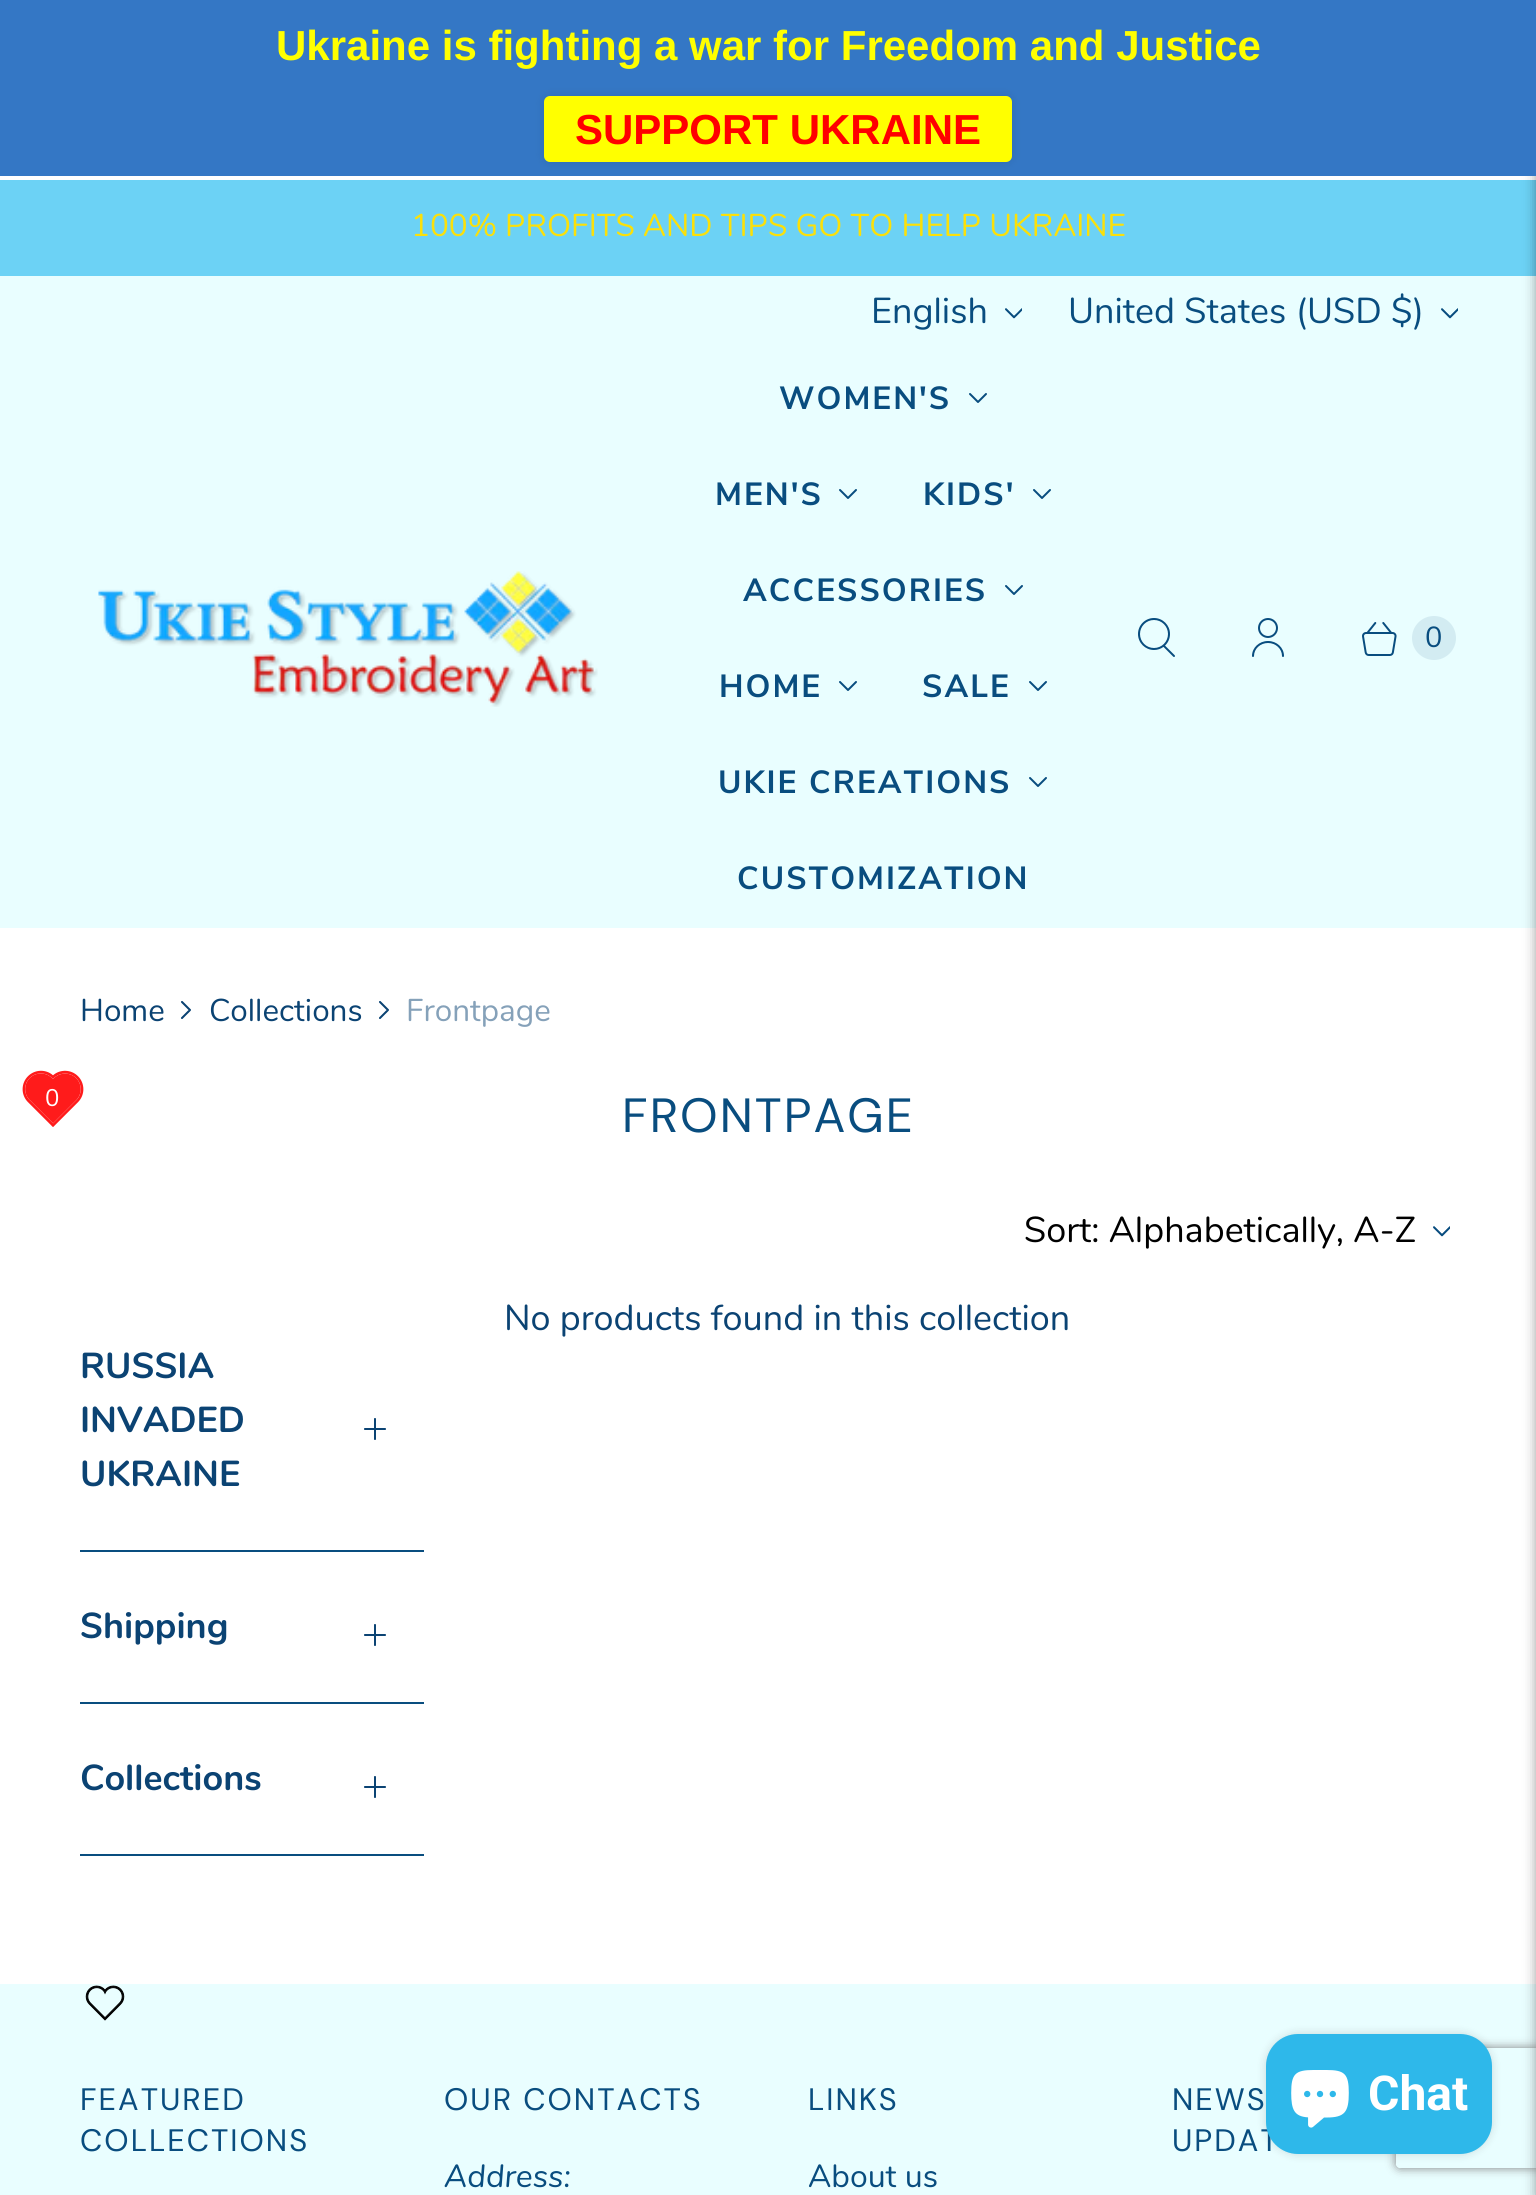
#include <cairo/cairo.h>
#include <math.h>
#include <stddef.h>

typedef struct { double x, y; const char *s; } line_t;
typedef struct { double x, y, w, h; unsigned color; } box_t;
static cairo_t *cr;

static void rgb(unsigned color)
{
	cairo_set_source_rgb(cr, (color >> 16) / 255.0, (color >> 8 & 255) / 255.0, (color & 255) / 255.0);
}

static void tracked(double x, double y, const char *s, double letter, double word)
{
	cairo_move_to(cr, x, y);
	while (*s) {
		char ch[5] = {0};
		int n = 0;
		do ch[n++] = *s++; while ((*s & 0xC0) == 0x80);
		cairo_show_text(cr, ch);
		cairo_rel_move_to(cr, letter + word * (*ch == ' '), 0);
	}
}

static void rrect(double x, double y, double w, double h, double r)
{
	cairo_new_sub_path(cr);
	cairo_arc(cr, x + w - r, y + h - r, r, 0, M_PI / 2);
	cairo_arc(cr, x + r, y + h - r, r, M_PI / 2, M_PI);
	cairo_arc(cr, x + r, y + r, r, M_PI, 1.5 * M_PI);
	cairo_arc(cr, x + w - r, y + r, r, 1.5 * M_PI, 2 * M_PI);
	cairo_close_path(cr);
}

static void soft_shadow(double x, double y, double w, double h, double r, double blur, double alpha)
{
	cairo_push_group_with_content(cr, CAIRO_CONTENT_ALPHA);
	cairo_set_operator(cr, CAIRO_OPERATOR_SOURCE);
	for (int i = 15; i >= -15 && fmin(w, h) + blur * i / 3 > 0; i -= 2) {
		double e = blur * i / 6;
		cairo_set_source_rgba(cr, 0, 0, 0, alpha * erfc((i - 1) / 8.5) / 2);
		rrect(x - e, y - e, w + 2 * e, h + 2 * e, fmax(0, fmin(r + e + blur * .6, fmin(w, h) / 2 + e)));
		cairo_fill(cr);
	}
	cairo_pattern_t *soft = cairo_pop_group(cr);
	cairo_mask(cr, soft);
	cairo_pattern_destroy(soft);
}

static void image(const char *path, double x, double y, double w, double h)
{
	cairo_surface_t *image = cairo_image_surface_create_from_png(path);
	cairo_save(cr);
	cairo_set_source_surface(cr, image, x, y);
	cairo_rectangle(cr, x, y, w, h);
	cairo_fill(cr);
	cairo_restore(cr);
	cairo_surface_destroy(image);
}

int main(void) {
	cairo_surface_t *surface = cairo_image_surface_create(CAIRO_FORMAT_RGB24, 1536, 2195);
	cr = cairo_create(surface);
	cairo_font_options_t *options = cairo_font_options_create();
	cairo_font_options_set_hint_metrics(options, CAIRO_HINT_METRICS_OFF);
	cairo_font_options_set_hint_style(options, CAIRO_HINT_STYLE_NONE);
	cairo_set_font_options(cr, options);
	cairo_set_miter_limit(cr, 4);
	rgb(0xffffff);
	cairo_paint(cr);
	{
		static const box_t items[] = {
			{0, 180, 1536, 96, 0x6cd2f5},
			{0, 276, 1536, 652, 0xe9feff},
			{0, 1984, 1536, 211, 0xe9feff},
		};
		for (size_t i = 0; i < sizeof items / sizeof *items; i++) {
			rgb(items[i].color);
			cairo_rectangle(cr, items[i].x, items[i].y, items[i].w, items[i].h);
			cairo_fill(cr);
		}
	}
	rgb(0x000000);
	soft_shadow(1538, 0, 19, 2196, 0, 7, 0.5);
	rgb(0x3477c5);
	cairo_rectangle(cr, 0, 0, 1536, 176);
	cairo_fill(cr);
	rgb(0x000000);
	soft_shadow(544, 96, 468, 66, 6, 5, 0.1);
	rgb(0xffff00);
	rrect(544, 96, 468, 66, 6);
	cairo_fill(cr);
	image("img/1.png", 1005, 308, 17, 11);
	image("img/2.png", 1441, 308, 17, 11);
	image("img/3.png", 98, 571, 500, 136);
	image("img/4.png", 969, 393, 18, 10);
	image("img/4.png", 839, 489, 18, 10);
	image("img/4.png", 1033, 489, 18, 10);
	image("img/4.png", 1005, 585, 18, 10);
	image("img/4.png", 839, 681, 18, 10);
	image("img/4.png", 1029, 681, 18, 10);
	image("img/4.png", 1029, 777, 18, 10);
	image("img/5.png", 1138, 618, 37, 39);
	image("img/6.png", 1252, 618, 32, 39);
	image("img/7.png", 1362, 622, 35, 34);
	rgb(0xd3ecf2);
	cairo_arc(cr, 1434, 638, 22, 0, 2 * M_PI);
	cairo_fill(cr);
	image("img/8.png", 22, 1070, 62, 57);
	image("img/9.png", 181, 1001, 10, 18);
	image("img/9.png", 379, 1001, 10, 18);
	image("img/10.png", 1433, 1226, 17, 11);
	rgb(0x094d7f);
	cairo_rectangle(cr, 80, 1550, 344, 2);
	cairo_fill(cr);
	image("img/11.png", 364, 1418, 22, 22);
	cairo_rectangle(cr, 80, 1702, 344, 2);
	cairo_fill(cr);
	image("img/11.png", 364, 1624, 22, 22);
	cairo_rectangle(cr, 80, 1854, 344, 2);
	cairo_fill(cr);
	image("img/11.png", 364, 1776, 22, 22);
	image("img/12.png", 85, 1985, 40, 36);
	cairo_save(cr);
	cairo_set_fill_rule(cr, CAIRO_FILL_RULE_EVEN_ODD);
	cairo_new_path(cr);
	cairo_move_to(cr, 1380, 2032);
	cairo_line_to(cr, 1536, 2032);
	cairo_line_to(cr, 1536, 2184);
	cairo_line_to(cr, 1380, 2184);
	cairo_close_path(cr);
	cairo_move_to(cr, 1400, 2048);
	cairo_line_to(cr, 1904, 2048);
	cairo_curve_to(cr, 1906, 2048, 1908, 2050, 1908, 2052);
	cairo_line_to(cr, 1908, 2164);
	cairo_curve_to(cr, 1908, 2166, 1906, 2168, 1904, 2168);
	cairo_line_to(cr, 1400, 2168);
	cairo_curve_to(cr, 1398, 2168, 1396, 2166, 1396, 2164);
	cairo_line_to(cr, 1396, 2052);
	cairo_curve_to(cr, 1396, 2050, 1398, 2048, 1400, 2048);
	cairo_close_path(cr);
	cairo_clip(cr);
	rgb(0x808080);
	soft_shadow(1396, 2048, 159, 120, 4, 5, 1);
	cairo_restore(cr);
	rgb(0x000000);
	soft_shadow(1266, 2034, 226, 120, 32, 5, 0.15);
	cairo_select_font_face(cr, "Liberation Sans", CAIRO_FONT_SLANT_NORMAL, CAIRO_FONT_WEIGHT_BOLD);
	cairo_set_font_size(cr, 42);
	rgb(0xffff00);
	cairo_move_to(cr, 276, 60);
	cairo_show_text(cr, "Ukraine is fighting a war for Freedom and Justice");
	rgb(0xff0000);
	cairo_move_to(cr, 575, 144);
	cairo_show_text(cr, "SUPPORT UKRAINE");
	cairo_select_font_face(cr, "Nunito", CAIRO_FONT_SLANT_NORMAL, CAIRO_FONT_WEIGHT_NORMAL);
	cairo_set_font_size(cr, 31.5);
	rgb(0xfbe009);
	cairo_move_to(cr, 411, 236);
	cairo_show_text(cr, "100% PROFITS AND TIPS GO TO HELP UKRAINE");
	cairo_set_font_size(cr, 36);
	rgb(0x094d7f);
	cairo_move_to(cr, 871, 323);
	cairo_show_text(cr, "English");
	cairo_move_to(cr, 1068, 323);
	cairo_show_text(cr, "United States (USD $)");
	cairo_select_font_face(cr, "Nunito Sans", CAIRO_FONT_SLANT_NORMAL, CAIRO_FONT_WEIGHT_BOLD);
	cairo_set_font_size(cr, 32);
	{
		static const line_t items[] = {
			{779, 409, "WOMEN'S"},
			{715, 505, "MEN'S"},
			{923, 505, "KIDS'"},
			{743, 601, "ACCESSORIES"},
			{719, 697, "HOME"},
			{922, 697, "SALE"},
			{718, 793, "UKIE CREATIONS"},
			{737, 889, "CUSTOMIZATION"},
		};
		for (size_t i = 0; i < sizeof items / sizeof *items; i++) {
			tracked(items[i].x, items[i].y, items[i].s, 2, 0);
		}
	}
	cairo_select_font_face(cr, "Nunito", CAIRO_FONT_SLANT_NORMAL, CAIRO_FONT_WEIGHT_NORMAL);
	cairo_set_font_size(cr, 29);
	cairo_move_to(cr, 1425, 647);
	cairo_show_text(cr, "0");
	cairo_set_font_size(cr, 24);
	rgb(0xffffff);
	cairo_move_to(cr, 45, 1106);
	cairo_show_text(cr, "0");
	cairo_set_font_size(cr, 31.5);
	rgb(0x0b4373);
	cairo_move_to(cr, 80, 1021);
	cairo_show_text(cr, "Home");
	cairo_move_to(cr, 209, 1021);
	cairo_show_text(cr, "Collections");
	rgb(0x85a1b9);
	cairo_move_to(cr, 406, 1021);
	cairo_show_text(cr, "Frontpage");
	cairo_select_font_face(cr, "DM Sans", CAIRO_FONT_SLANT_NORMAL, CAIRO_FONT_WEIGHT_NORMAL);
	cairo_set_font_size(cr, 48);
	rgb(0x094d7f);
	tracked(622, 1132, "FRONTPAGE", 2, 0);
	cairo_select_font_face(cr, "Nunito", CAIRO_FONT_SLANT_NORMAL, CAIRO_FONT_WEIGHT_NORMAL);
	cairo_set_font_size(cr, 36);
	rgb(0x000000);
	cairo_move_to(cr, 1024, 1242);
	cairo_show_text(cr, "Sort: Alphabetically, A-Z");
	rgb(0x0b4373);
	cairo_move_to(cr, 504, 1330);
	cairo_show_text(cr, "No products found in this collection");
	cairo_select_font_face(cr, "Nunito", CAIRO_FONT_SLANT_NORMAL, CAIRO_FONT_WEIGHT_BOLD);
	{
		static const line_t items[] = {
			{80, 1378, "RUSSIA"},
			{80, 1432, "INVADED"},
			{80, 1486, "UKRAINE"},
			{80, 1638, "Shipping"},
			{80, 1790, "Collections"},
		};
		for (size_t i = 0; i < sizeof items / sizeof *items; i++) {
			cairo_move_to(cr, items[i].x, items[i].y);
			cairo_show_text(cr, items[i].s);
		}
	}
	cairo_select_font_face(cr, "DM Sans", CAIRO_FONT_SLANT_NORMAL, CAIRO_FONT_WEIGHT_NORMAL);
	cairo_set_font_size(cr, 31);
	rgb(0x094d7f);
	{
		static const line_t items[] = {
			{80, 2110, "FEATURED"},
			{80, 2151, "COLLECTIONS"},
			{444, 2110, "OUR CONTACTS"},
		};
		for (size_t i = 0; i < sizeof items / sizeof *items; i++) {
			tracked(items[i].x, items[i].y, items[i].s, 2, 0);
		}
	}
	cairo_select_font_face(cr, "Nunito", CAIRO_FONT_SLANT_ITALIC, CAIRO_FONT_WEIGHT_NORMAL);
	cairo_set_font_size(cr, 32);
	cairo_move_to(cr, 444, 2187);
	cairo_show_text(cr, "Address:");
	cairo_select_font_face(cr, "DM Sans", CAIRO_FONT_SLANT_NORMAL, CAIRO_FONT_WEIGHT_NORMAL);
	cairo_set_font_size(cr, 31);
	tracked(808, 2110, "LINKS", 2, 0);
	cairo_select_font_face(cr, "Nunito", CAIRO_FONT_SLANT_NORMAL, CAIRO_FONT_WEIGHT_NORMAL);
	cairo_set_font_size(cr, 32);
	cairo_move_to(cr, 808, 2187);
	cairo_show_text(cr, "About us");
	cairo_select_font_face(cr, "DM Sans", CAIRO_FONT_SLANT_NORMAL, CAIRO_FONT_WEIGHT_NORMAL);
	cairo_set_font_size(cr, 31);
	tracked(1172, 2110, "NEWS", 2, 0);
	tracked(1172, 2151, "UPDAT", 2, 0);
	rgb(0x2eb8ea);
	rrect(1266, 2034, 226, 120, 32);
	cairo_fill(cr);
	image("img/13.png", 1291, 2070, 58, 58);
	cairo_select_font_face(cr, "Roboto", CAIRO_FONT_SLANT_NORMAL, CAIRO_FONT_WEIGHT_BOLD);
	cairo_set_font_size(cr, 48);
	rgb(0xffffff);
	cairo_move_to(cr, 1368, 2110);
	cairo_show_text(cr, "Chat");
	cairo_surface_write_to_png(surface, "page.png");
	cairo_font_options_destroy(options);
	cairo_destroy(cr);
	cairo_surface_destroy(surface);
	return 0;
}
